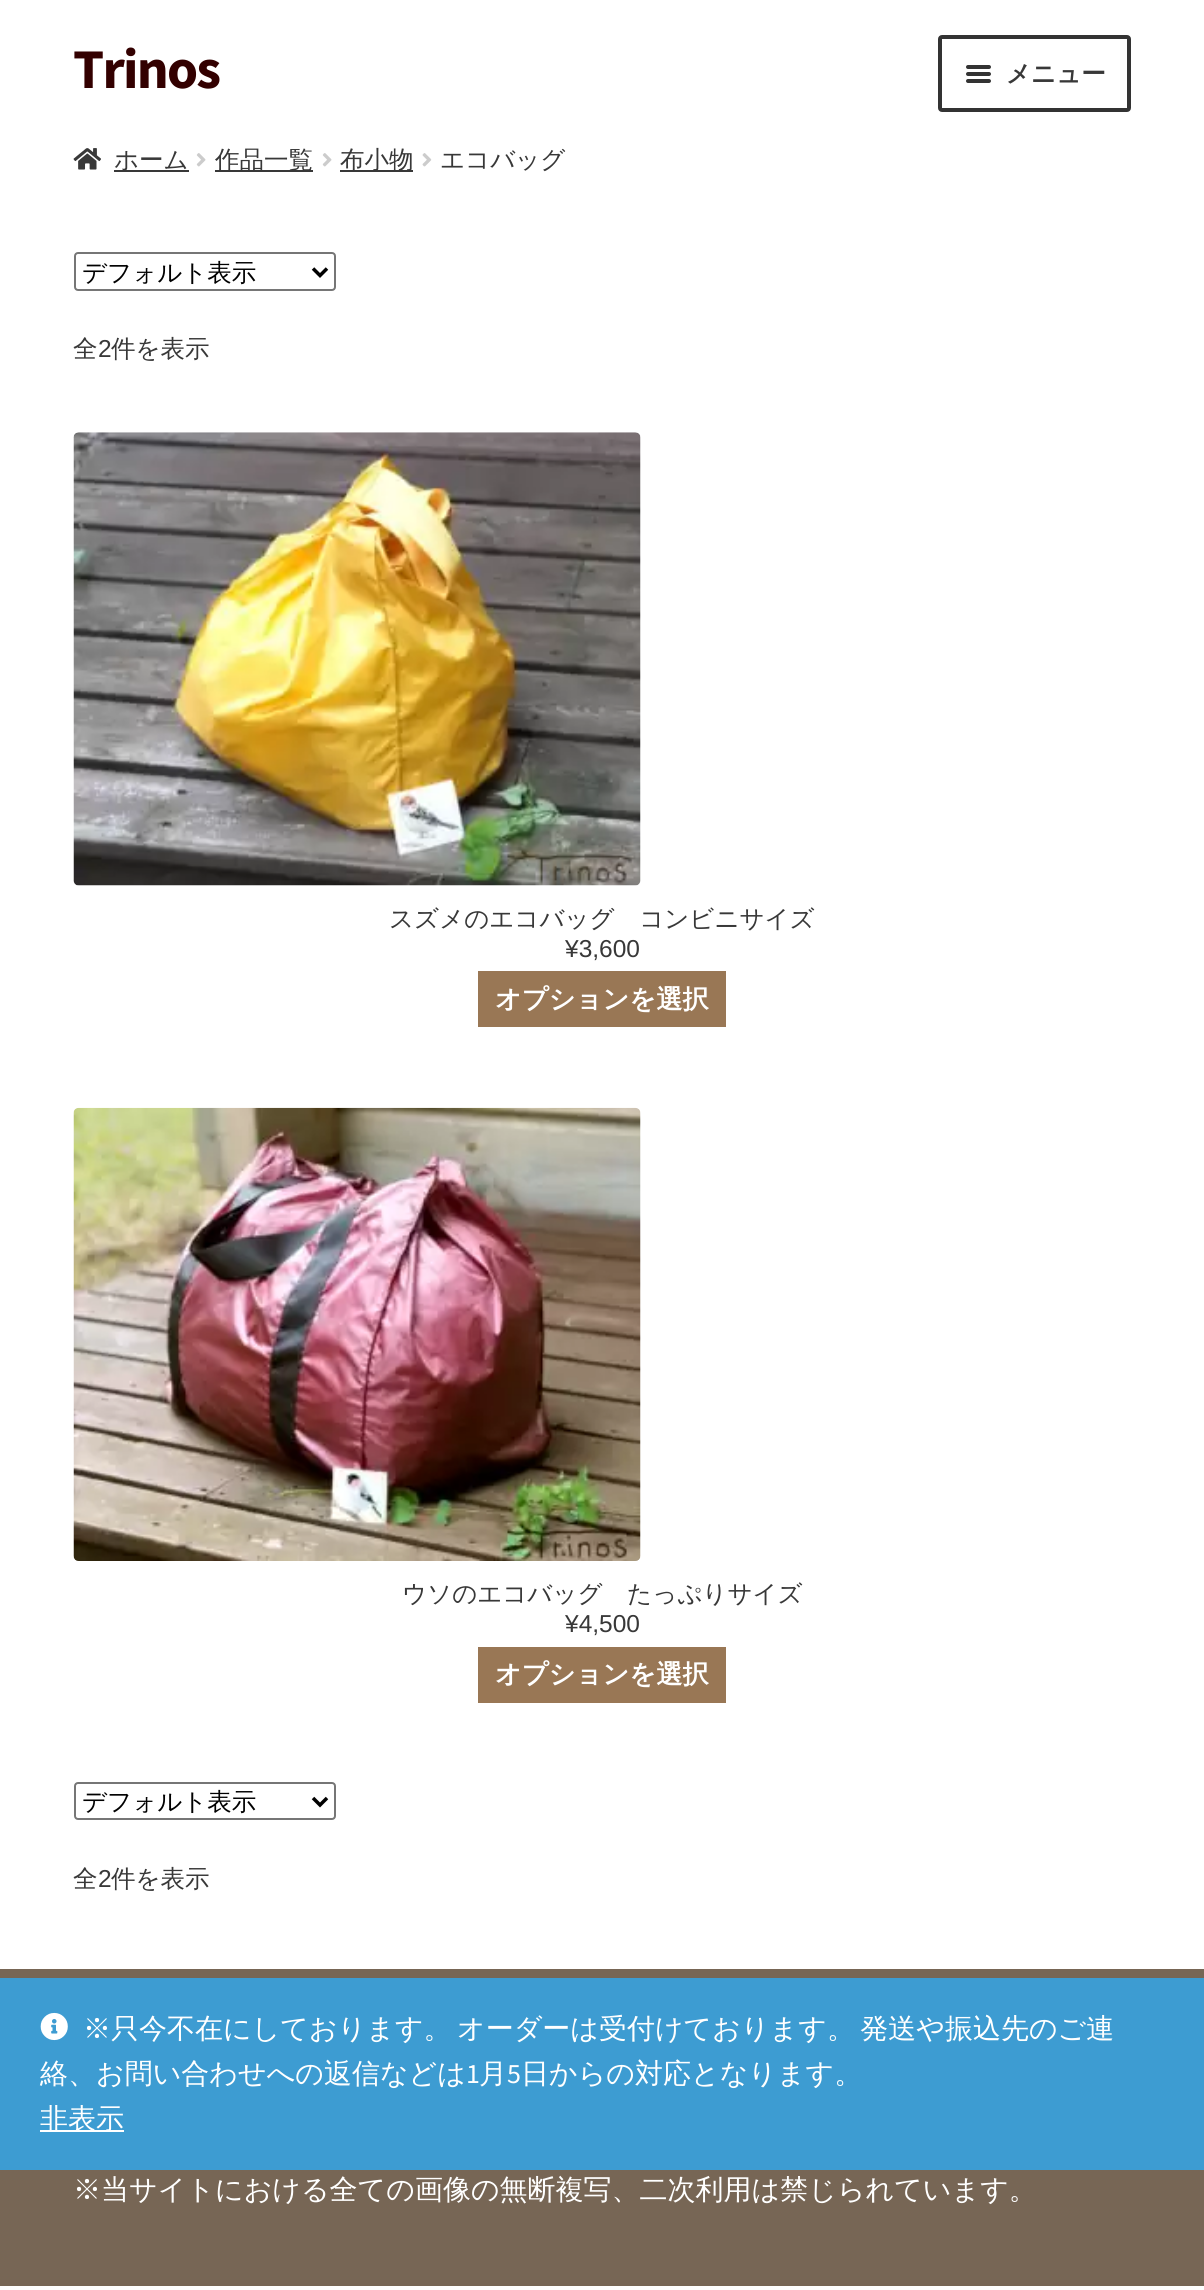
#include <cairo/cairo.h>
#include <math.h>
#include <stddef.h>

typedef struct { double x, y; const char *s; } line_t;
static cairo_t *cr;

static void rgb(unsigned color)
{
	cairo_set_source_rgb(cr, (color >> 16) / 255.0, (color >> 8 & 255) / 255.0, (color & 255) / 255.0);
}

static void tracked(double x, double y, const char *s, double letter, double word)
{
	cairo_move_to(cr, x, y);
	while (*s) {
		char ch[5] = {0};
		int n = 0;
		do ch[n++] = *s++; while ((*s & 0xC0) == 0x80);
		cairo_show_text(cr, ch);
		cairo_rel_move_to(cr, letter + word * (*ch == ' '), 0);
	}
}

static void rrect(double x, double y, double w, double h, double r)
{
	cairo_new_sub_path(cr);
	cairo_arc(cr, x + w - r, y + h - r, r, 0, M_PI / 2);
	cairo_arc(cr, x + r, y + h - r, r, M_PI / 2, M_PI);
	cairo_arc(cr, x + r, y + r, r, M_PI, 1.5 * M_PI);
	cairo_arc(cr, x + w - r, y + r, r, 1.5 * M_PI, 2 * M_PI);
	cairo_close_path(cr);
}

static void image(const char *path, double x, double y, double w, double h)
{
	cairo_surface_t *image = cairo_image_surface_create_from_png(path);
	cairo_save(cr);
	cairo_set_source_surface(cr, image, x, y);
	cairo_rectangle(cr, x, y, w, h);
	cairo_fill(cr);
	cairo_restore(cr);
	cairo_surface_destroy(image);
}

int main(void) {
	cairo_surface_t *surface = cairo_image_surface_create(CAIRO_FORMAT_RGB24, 1204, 2290);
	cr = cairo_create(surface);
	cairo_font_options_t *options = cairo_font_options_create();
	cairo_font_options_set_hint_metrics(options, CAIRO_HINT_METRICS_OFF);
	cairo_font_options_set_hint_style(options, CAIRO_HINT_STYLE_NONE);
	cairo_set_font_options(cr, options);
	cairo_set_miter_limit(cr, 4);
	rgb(0xffffff);
	cairo_paint(cr);
	rrect(940, 37, 189, 73, 2);
	rgb(0x333333);
	cairo_set_line_width(cr, 4);
	cairo_stroke(cr);
	rrect(966, 65, 25, 4, 2);
	cairo_fill(cr);
	rrect(966, 72, 25, 4, 2);
	cairo_fill(cr);
	rrect(966, 79, 25, 4, 2);
	cairo_fill(cr);
	image("img/1.png", 73, 148, 28, 22);
	rgb(0x383838);
	cairo_rectangle(cr, 114, 170, 75, 2);
	cairo_fill(cr);
	image("img/2.png", 196, 153, 10, 14);
	cairo_rectangle(cr, 215, 170, 98, 2);
	cairo_fill(cr);
	image("img/2.png", 322, 153, 10, 14);
	cairo_rectangle(cr, 340, 170, 73, 2);
	cairo_fill(cr);
	image("img/3.png", 422, 153, 10, 14);
	rrect(75, 253, 260, 37, 3);
	rgb(0x767676);
	cairo_set_line_width(cr, 2);
	cairo_stroke(cr);
	cairo_new_path(cr);
	cairo_move_to(cr, 313, 268.5);
	cairo_line_to(cr, 320, 275.5);
	cairo_line_to(cr, 327, 268.5);
	rgb(0x000000);
	cairo_set_line_width(cr, 3.5);
	cairo_stroke(cr);
	image("img/4.png", 73, 432, 568, 454);
	rgb(0x997755);
	cairo_rectangle(cr, 478, 971, 248, 56);
	cairo_fill(cr);
	image("img/5.png", 73, 1107, 568, 454);
	cairo_rectangle(cr, 478, 1647, 248, 56);
	cairo_fill(cr);
	rrect(75, 1783, 260, 36, 3);
	rgb(0x767676);
	cairo_set_line_width(cr, 2);
	cairo_stroke(cr);
	cairo_new_path(cr);
	cairo_move_to(cr, 313, 1798);
	cairo_line_to(cr, 320, 1805);
	cairo_line_to(cr, 327, 1798);
	rgb(0x000000);
	cairo_set_line_width(cr, 3.5);
	cairo_stroke(cr);
	rgb(0x776655);
	cairo_rectangle(cr, 0, 1969, 1204, 317);
	cairo_fill(cr);
	rgb(0x3d9cd2);
	cairo_rectangle(cr, 0, 1978, 1204, 192);
	cairo_fill(cr);
	image("img/6.png", 40, 2012, 28, 29);
	rgb(0xffffff);
	cairo_rectangle(cr, 40, 2130, 84, 2);
	cairo_fill(cr);
	cairo_select_font_face(cr, "Source Sans Pro", CAIRO_FONT_SLANT_NORMAL, CAIRO_FONT_WEIGHT_BOLD);
	cairo_set_font_size(cr, 56);
	rgb(0x330000);
	tracked(73, 88, "Trinos", -1.75, 0);
	cairo_select_font_face(cr, "WenQuanYi Zen Hei", CAIRO_FONT_SLANT_NORMAL, CAIRO_FONT_WEIGHT_BOLD);
	cairo_set_font_size(cr, 24.5);
	rgb(0x383838);
	cairo_move_to(cr, 1006, 82);
	cairo_show_text(cr, "メニュー");
	cairo_select_font_face(cr, "WenQuanYi Zen Hei Medium", CAIRO_FONT_SLANT_NORMAL, CAIRO_FONT_WEIGHT_NORMAL);
	{
		static const line_t items[] = {
			{114, 168, "ホーム"},
			{215, 168, "作品一覧"},
			{340, 168, "布小物"},
			{440, 168, "エコバッグ"},
		};
		for (size_t i = 0; i < sizeof items / sizeof *items; i++) {
			cairo_move_to(cr, items[i].x, items[i].y);
			cairo_show_text(cr, items[i].s);
		}
	}
	rgb(0x000000);
	cairo_move_to(cr, 82, 281);
	cairo_show_text(cr, "デフォルト表示");
	rgb(0x383838);
	cairo_move_to(cr, 73, 357);
	cairo_show_text(cr, "全");
	cairo_select_font_face(cr, "Liberation Sans", CAIRO_FONT_SLANT_NORMAL, CAIRO_FONT_WEIGHT_NORMAL);
	cairo_move_to(cr, 98, 357);
	cairo_show_text(cr, "2");
	cairo_select_font_face(cr, "WenQuanYi Zen Hei Medium", CAIRO_FONT_SLANT_NORMAL, CAIRO_FONT_WEIGHT_NORMAL);
	cairo_move_to(cr, 111, 357);
	cairo_show_text(cr, "件を表示");
	cairo_move_to(cr, 389, 927);
	cairo_show_text(cr, "スズメのエコバッグ　コンビニサイズ");
	cairo_select_font_face(cr, "Liberation Sans", CAIRO_FONT_SLANT_NORMAL, CAIRO_FONT_WEIGHT_NORMAL);
	cairo_move_to(cr, 565, 957);
	cairo_show_text(cr, "¥3,600");
	cairo_select_font_face(cr, "WenQuanYi Zen Hei", CAIRO_FONT_SLANT_NORMAL, CAIRO_FONT_WEIGHT_BOLD);
	cairo_set_font_size(cr, 26.25);
	rgb(0xffffff);
	cairo_move_to(cr, 495, 1008);
	cairo_show_text(cr, "オプションを選択");
	cairo_select_font_face(cr, "WenQuanYi Zen Hei Medium", CAIRO_FONT_SLANT_NORMAL, CAIRO_FONT_WEIGHT_NORMAL);
	cairo_set_font_size(cr, 24.5);
	rgb(0x383838);
	cairo_move_to(cr, 402, 1602);
	cairo_show_text(cr, "ウソのエコバッグ　たっぷりサイズ");
	cairo_select_font_face(cr, "Liberation Sans", CAIRO_FONT_SLANT_NORMAL, CAIRO_FONT_WEIGHT_NORMAL);
	cairo_move_to(cr, 565, 1632);
	cairo_show_text(cr, "¥4,500");
	cairo_select_font_face(cr, "WenQuanYi Zen Hei", CAIRO_FONT_SLANT_NORMAL, CAIRO_FONT_WEIGHT_BOLD);
	cairo_set_font_size(cr, 26.25);
	rgb(0xffffff);
	cairo_move_to(cr, 495, 1683);
	cairo_show_text(cr, "オプションを選択");
	cairo_select_font_face(cr, "WenQuanYi Zen Hei Medium", CAIRO_FONT_SLANT_NORMAL, CAIRO_FONT_WEIGHT_NORMAL);
	cairo_set_font_size(cr, 24.5);
	rgb(0x000000);
	cairo_move_to(cr, 82, 1810);
	cairo_show_text(cr, "デフォルト表示");
	rgb(0x383838);
	cairo_move_to(cr, 73, 1887);
	cairo_show_text(cr, "全");
	cairo_select_font_face(cr, "Liberation Sans", CAIRO_FONT_SLANT_NORMAL, CAIRO_FONT_WEIGHT_NORMAL);
	cairo_move_to(cr, 98, 1887);
	cairo_show_text(cr, "2");
	cairo_select_font_face(cr, "WenQuanYi Zen Hei Medium", CAIRO_FONT_SLANT_NORMAL, CAIRO_FONT_WEIGHT_NORMAL);
	cairo_move_to(cr, 111, 1887);
	cairo_show_text(cr, "件を表示");
	cairo_set_font_size(cr, 28);
	rgb(0xffffff);
	cairo_move_to(cr, 73, 2199);
	cairo_show_text(cr, "※当サイトにおける全ての画像の無断複写、二次利用は禁じられています。");
	tracked(83, 2038, "※只今不在にしております。 オーダーは受付けております。 発送や振込先のご連", 0, -3);
	cairo_move_to(cr, 40, 2083);
	cairo_show_text(cr, "絡、お問い合わせへの返信などは");
	cairo_select_font_face(cr, "Source Sans Pro", CAIRO_FONT_SLANT_NORMAL, CAIRO_FONT_WEIGHT_NORMAL);
	cairo_move_to(cr, 466, 2083);
	cairo_show_text(cr, "1");
	cairo_select_font_face(cr, "WenQuanYi Zen Hei Medium", CAIRO_FONT_SLANT_NORMAL, CAIRO_FONT_WEIGHT_NORMAL);
	cairo_move_to(cr, 479, 2083);
	cairo_show_text(cr, "月");
	cairo_select_font_face(cr, "Source Sans Pro", CAIRO_FONT_SLANT_NORMAL, CAIRO_FONT_WEIGHT_NORMAL);
	cairo_move_to(cr, 507, 2083);
	cairo_show_text(cr, "5");
	cairo_select_font_face(cr, "WenQuanYi Zen Hei Medium", CAIRO_FONT_SLANT_NORMAL, CAIRO_FONT_WEIGHT_NORMAL);
	cairo_move_to(cr, 521, 2083);
	cairo_show_text(cr, "日からの対応となります。");
	cairo_move_to(cr, 40, 2128);
	cairo_show_text(cr, "非表示");
	cairo_surface_write_to_png(surface, "page.png");
	cairo_font_options_destroy(options);
	cairo_destroy(cr);
	cairo_surface_destroy(surface);
	return 0;
}
